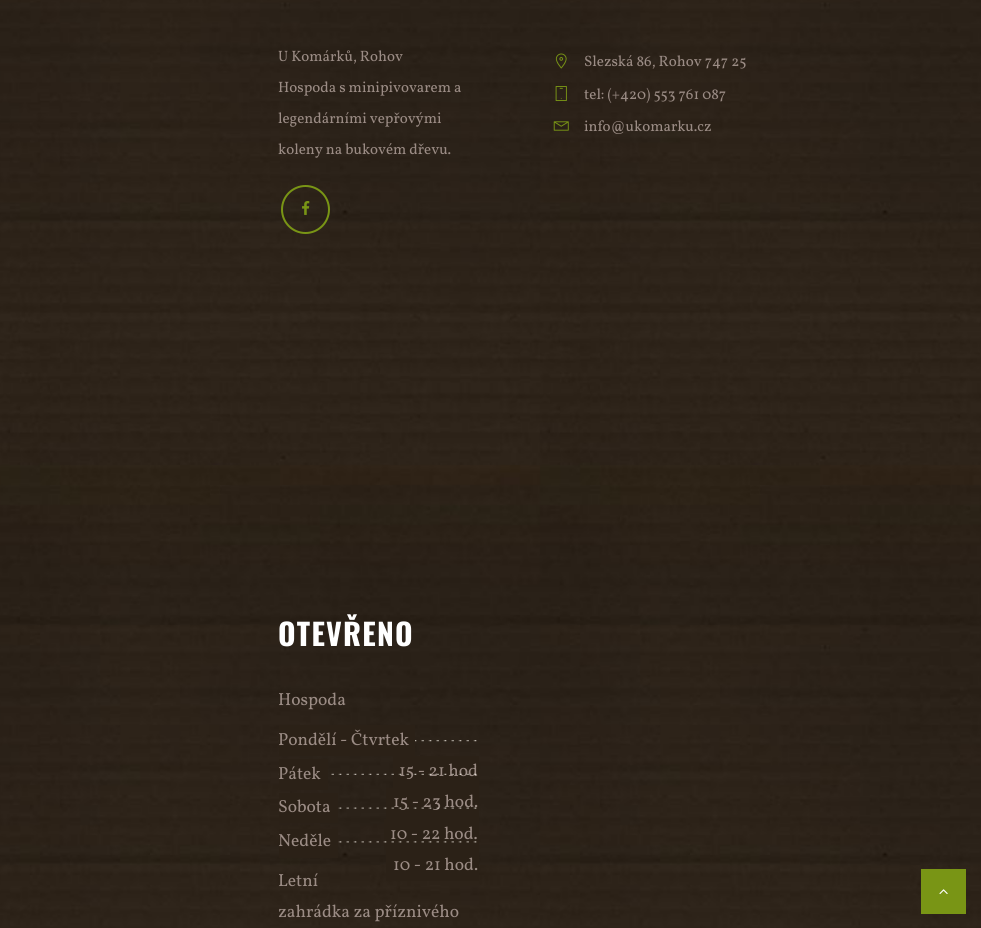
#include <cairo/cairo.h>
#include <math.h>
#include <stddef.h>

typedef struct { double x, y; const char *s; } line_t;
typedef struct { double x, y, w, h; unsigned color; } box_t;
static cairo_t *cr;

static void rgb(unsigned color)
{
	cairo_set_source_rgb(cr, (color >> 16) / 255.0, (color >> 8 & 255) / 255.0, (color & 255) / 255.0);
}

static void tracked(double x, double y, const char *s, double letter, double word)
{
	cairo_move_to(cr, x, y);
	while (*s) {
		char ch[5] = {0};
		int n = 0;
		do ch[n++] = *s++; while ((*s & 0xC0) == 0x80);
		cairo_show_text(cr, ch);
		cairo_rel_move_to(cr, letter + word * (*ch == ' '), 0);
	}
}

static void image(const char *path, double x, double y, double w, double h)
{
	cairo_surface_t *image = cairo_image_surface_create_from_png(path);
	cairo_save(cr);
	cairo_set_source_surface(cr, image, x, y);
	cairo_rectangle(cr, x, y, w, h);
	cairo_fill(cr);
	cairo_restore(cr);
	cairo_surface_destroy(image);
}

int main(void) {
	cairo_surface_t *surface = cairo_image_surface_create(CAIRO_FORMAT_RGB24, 981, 928);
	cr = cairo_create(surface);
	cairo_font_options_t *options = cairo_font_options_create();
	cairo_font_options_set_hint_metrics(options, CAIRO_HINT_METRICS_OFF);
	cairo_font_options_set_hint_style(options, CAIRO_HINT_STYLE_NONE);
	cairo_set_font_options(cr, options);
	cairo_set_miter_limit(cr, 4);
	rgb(0xffffff);
	cairo_paint(cr);
	image("img/1.png", 0, 0, 981, 928);
	cairo_arc(cr, 305.5, 209.5, 23.5, 0, 2 * M_PI);
	rgb(0x799515);
	cairo_stroke(cr);
	image("img/2.png", 302, 201, 8, 14);
	image("img/3.png", 555, 53, 12, 16);
	image("img/4.png", 555, 86, 12, 15);
	image("img/5.png", 553, 121, 16, 10);
	image("img/6.png", 278, 740, 199, 2);
	{
		static const box_t items[] = {
			{279, 725, 136, 31, 0x2b2117},
			{393, 756, 86, 32, 0x2b2117},
			{386, 788, 93, 31, 0x2b2117},
			{279, 793, 59, 30, 0x2b2117},
			{384, 819, 95, 31, 0x2b2117},
		};
		for (size_t i = 0; i < sizeof items / sizeof *items; i++) {
			rgb(items[i].color);
			cairo_rectangle(cr, items[i].x, items[i].y, items[i].w, items[i].h);
			cairo_fill(cr);
		}
	}
	image("img/9.png", 338, 841, 139, 2);
	{
		static const box_t items[] = {
			{279, 829, 59, 29, 0x2b2117},
			{386, 850, 93, 31, 0x2b2117},
			{921, 869, 45, 45, 0x799515},
		};
		for (size_t i = 0; i < sizeof items / sizeof *items; i++) {
			rgb(items[i].color);
			cairo_rectangle(cr, items[i].x, items[i].y, items[i].w, items[i].h);
			cairo_fill(cr);
		}
	}
	image("img/10.png", 939, 889, 9, 5);
	cairo_select_font_face(cr, "Vollkorn", CAIRO_FONT_SLANT_NORMAL, CAIRO_FONT_WEIGHT_NORMAL);
	cairo_set_font_size(cr, 15);
	rgb(0x9b8c85);
	{
		static const line_t items[] = {
			{278, 61, "U Komárků, Rohov"},
			{278, 92, "Hospoda s minipivovarem a"},
			{278, 123, "legendárními vepřovými"},
			{278, 154, "koleny na bukovém dřevu."},
			{584, 66, "Slezská 86, Rohov 747 25"},
			{584, 99, "tel: (+420) 553 761 087"},
			{584, 131, "info@ukomarku.cz"},
		};
		for (size_t i = 0; i < sizeof items / sizeof *items; i++) {
			cairo_move_to(cr, items[i].x, items[i].y);
			cairo_show_text(cr, items[i].s);
		}
	}
	cairo_select_font_face(cr, "Oswald", CAIRO_FONT_SLANT_NORMAL, CAIRO_FONT_WEIGHT_BOLD);
	cairo_set_font_size(cr, 30);
	rgb(0xffffff);
	tracked(278, 646, "OTEVŘENO", 1.25, 0);
	cairo_select_font_face(cr, "Vollkorn", CAIRO_FONT_SLANT_NORMAL, CAIRO_FONT_WEIGHT_NORMAL);
	cairo_set_font_size(cr, 17.5);
	rgb(0x9b8c85);
	{
		static const line_t items[] = {
			{278, 705, "Hospoda"},
			{278, 745, "Pondělí - Čtvrtek"},
			{399, 776, "15 - 21 hod"},
		};
		for (size_t i = 0; i < sizeof items / sizeof *items; i++) {
			cairo_move_to(cr, items[i].x, items[i].y);
			cairo_show_text(cr, items[i].s);
		}
	}
	image("img/7.png", 278, 773, 199, 2);
	rgb(0x2b2117);
	cairo_rectangle(cr, 279, 759, 49, 31);
	cairo_fill(cr);
	rgb(0x9b8c85);
	cairo_move_to(cr, 278, 779);
	cairo_show_text(cr, "Pátek");
	cairo_move_to(cr, 393, 807);
	cairo_show_text(cr, "15 - 23 hod.");
	image("img/8.png", 338, 807, 139, 2);
	{
		static const line_t items[] = {
			{278, 812, "Sobota"},
			{390, 839, "10 - 22 hod."},
			{278, 846, "Neděle"},
			{393, 870, "10 - 21 hod."},
			{278, 886, "Letní"},
			{278, 917, "zahrádka za příznivého"},
		};
		for (size_t i = 0; i < sizeof items / sizeof *items; i++) {
			cairo_move_to(cr, items[i].x, items[i].y);
			cairo_show_text(cr, items[i].s);
		}
	}
	cairo_surface_write_to_png(surface, "page.png");
	cairo_font_options_destroy(options);
	cairo_destroy(cr);
	cairo_surface_destroy(surface);
	return 0;
}
